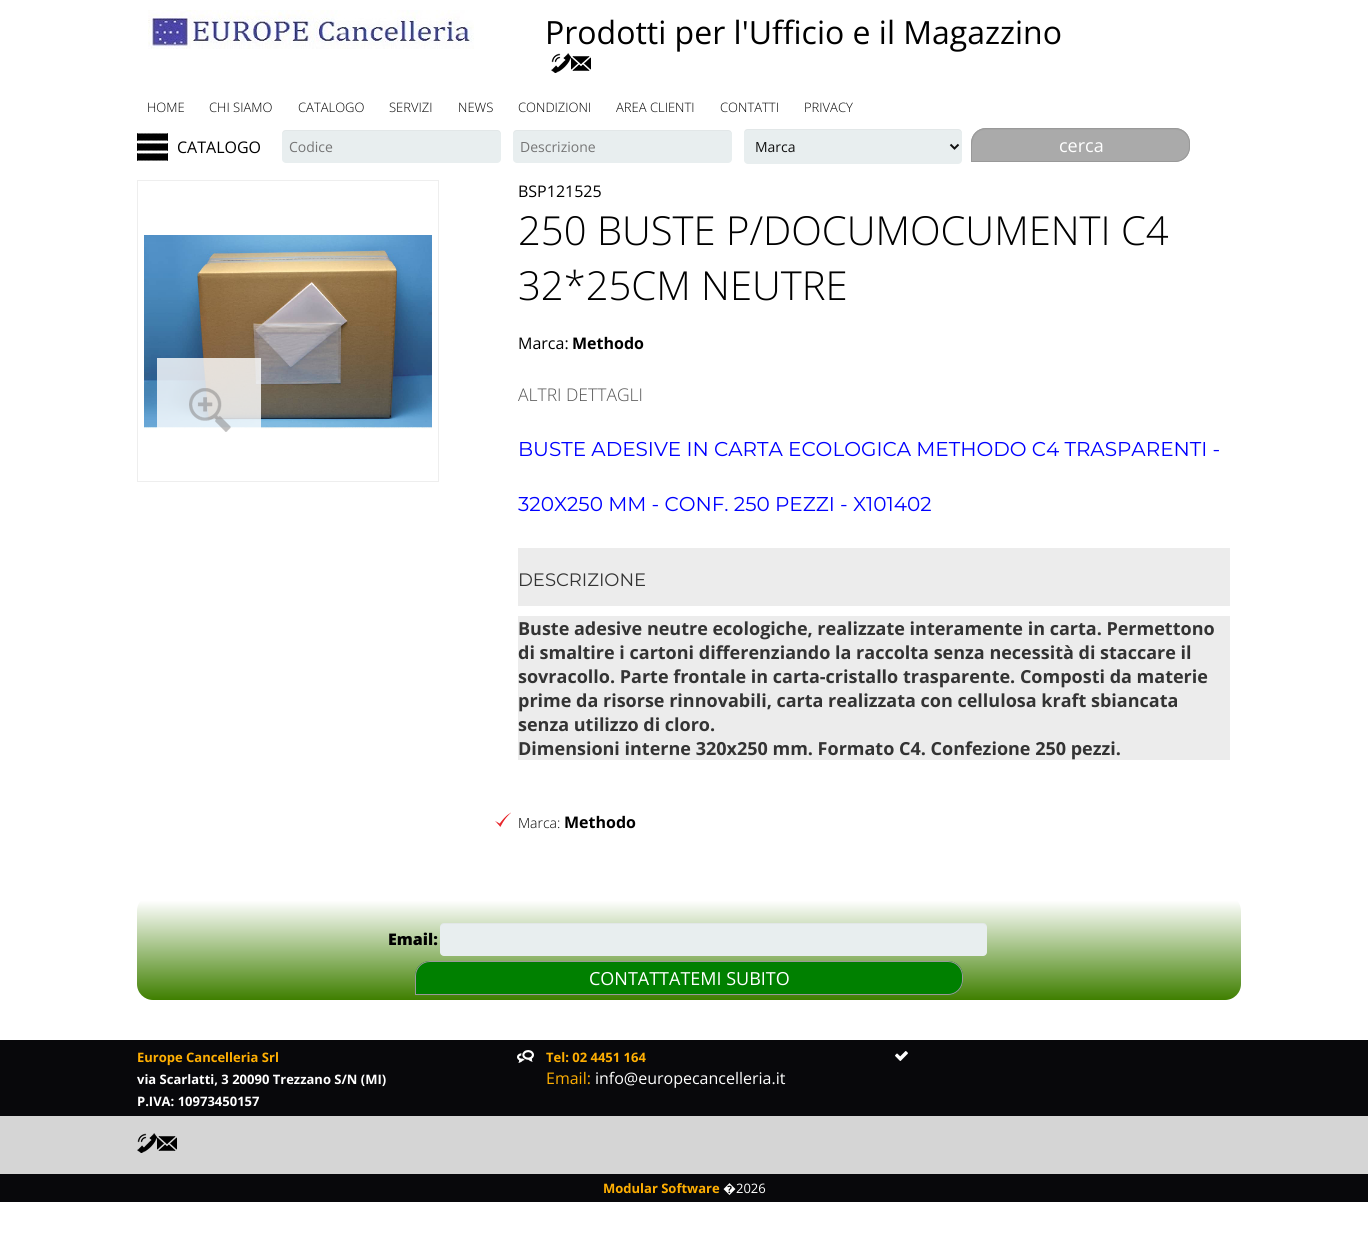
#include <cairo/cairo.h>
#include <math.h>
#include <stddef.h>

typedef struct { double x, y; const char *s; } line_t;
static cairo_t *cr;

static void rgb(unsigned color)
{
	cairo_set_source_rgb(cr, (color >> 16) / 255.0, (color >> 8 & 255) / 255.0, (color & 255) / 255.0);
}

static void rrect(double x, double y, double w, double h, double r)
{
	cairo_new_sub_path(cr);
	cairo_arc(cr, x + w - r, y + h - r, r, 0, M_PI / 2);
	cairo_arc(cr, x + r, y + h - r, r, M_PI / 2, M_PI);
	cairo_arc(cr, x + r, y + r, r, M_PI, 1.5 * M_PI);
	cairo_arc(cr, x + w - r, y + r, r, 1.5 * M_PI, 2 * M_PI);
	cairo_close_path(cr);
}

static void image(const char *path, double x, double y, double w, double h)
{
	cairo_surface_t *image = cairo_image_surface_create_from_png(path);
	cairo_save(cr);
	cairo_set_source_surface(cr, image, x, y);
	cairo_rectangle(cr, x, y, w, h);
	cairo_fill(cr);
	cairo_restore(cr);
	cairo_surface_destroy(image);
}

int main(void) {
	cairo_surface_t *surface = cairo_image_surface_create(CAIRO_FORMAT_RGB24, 1368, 1235);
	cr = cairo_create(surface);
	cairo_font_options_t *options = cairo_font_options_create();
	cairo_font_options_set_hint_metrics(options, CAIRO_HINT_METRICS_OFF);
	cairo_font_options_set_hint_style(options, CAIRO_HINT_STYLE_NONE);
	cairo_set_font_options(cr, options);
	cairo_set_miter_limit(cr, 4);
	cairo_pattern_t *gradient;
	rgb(0xffffff);
	cairo_paint(cr);
	image("img/1.png", 148, 10, 326, 39);
	image("img/2.png", 551, 53, 20, 20);
	image("img/3.png", 571, 56, 20, 15);
	image("img/4.png", 137, 133, 31, 28);
	rgb(0xe8eeef);
	rrect(282, 130, 219, 33, 4);
	cairo_fill(cr);
	cairo_set_source_rgba(cr, 0, 0, 0, 0.03);
	cairo_new_path(cr);
	cairo_move_to(cr, 286, 131);
	cairo_line_to(cr, 497, 131);
	cairo_curve_to(cr, 499, 131, 501, 133, 501, 135);
	cairo_curve_to(cr, 501, 132, 500, 130, 497, 130);
	cairo_line_to(cr, 284, 130);
	cairo_curve_to(cr, 282, 131, 282, 133, 282, 135);
	cairo_curve_to(cr, 282, 133, 284, 131, 286, 131);
	cairo_close_path(cr);
	cairo_fill(cr);
	rgb(0xe8eeef);
	rrect(513, 130, 219, 33, 4);
	cairo_fill(cr);
	cairo_set_source_rgba(cr, 0, 0, 0, 0.03);
	cairo_new_path(cr);
	cairo_move_to(cr, 517, 131);
	cairo_line_to(cr, 728, 131);
	cairo_curve_to(cr, 730, 131, 732, 133, 732, 135);
	cairo_curve_to(cr, 732, 132, 731, 130, 728, 130);
	cairo_line_to(cr, 515, 130);
	cairo_curve_to(cr, 513, 131, 513, 133, 513, 135);
	cairo_curve_to(cr, 513, 133, 515, 131, 517, 131);
	cairo_close_path(cr);
	cairo_fill(cr);
	rgb(0xe8eeef);
	rrect(744, 129, 218, 35, 4);
	cairo_fill(cr);
	cairo_set_source_rgba(cr, 0, 0, 0, 0.03);
	cairo_new_path(cr);
	cairo_move_to(cr, 748, 130);
	cairo_line_to(cr, 958, 130);
	cairo_curve_to(cr, 960, 130, 962, 132, 962, 134);
	cairo_curve_to(cr, 962, 131, 961, 129, 958, 129);
	cairo_line_to(cr, 746, 129);
	cairo_curve_to(cr, 744, 130, 744, 132, 744, 134);
	cairo_curve_to(cr, 744, 132, 746, 130, 748, 130);
	cairo_close_path(cr);
	cairo_fill(cr);
	cairo_new_path(cr);
	cairo_move_to(cr, 950.5, 144.5);
	cairo_line_to(cr, 954.5, 148.5);
	cairo_line_to(cr, 958.5, 144.5);
	rgb(0x111111);
	cairo_stroke(cr);
	rgb(0xaaaaaa);
	cairo_new_path(cr);
	cairo_move_to(cr, 986, 128);
	cairo_line_to(cr, 1175, 128);
	cairo_curve_to(cr, 1183.5, 128, 1190, 134.5, 1190, 143);
	cairo_line_to(cr, 1190, 147);
	cairo_curve_to(cr, 1190, 155.5, 1183.5, 162, 1175, 162);
	cairo_line_to(cr, 971, 162);
	cairo_line_to(cr, 971, 143);
	cairo_curve_to(cr, 971, 134.5, 977.5, 128, 986, 128);
	cairo_close_path(cr);
	cairo_fill(cr);
	rgb(0xa5a5a5);
	cairo_new_path(cr);
	cairo_move_to(cr, 986, 130);
	cairo_line_to(cr, 1175, 130);
	cairo_curve_to(cr, 1183, 130, 1189, 136, 1189, 144);
	cairo_line_to(cr, 1189, 143);
	cairo_curve_to(cr, 1189, 135, 1183, 129, 1175, 129);
	cairo_line_to(cr, 986, 129);
	cairo_curve_to(cr, 978, 129, 972, 135, 972, 143);
	cairo_line_to(cr, 972, 146);
	cairo_curve_to(cr, 973, 138, 976, 130, 986, 130);
	cairo_close_path(cr);
	cairo_fill(cr);
	cairo_new_path(cr);
	cairo_move_to(cr, 986, 128.5);
	cairo_line_to(cr, 1175, 128.5);
	cairo_curve_to(cr, 1183, 128.5, 1189.5, 135, 1189.5, 143);
	cairo_line_to(cr, 1189.5, 147);
	cairo_curve_to(cr, 1189.5, 155, 1183, 161.5, 1175, 161.5);
	cairo_line_to(cr, 971.5, 161.5);
	cairo_line_to(cr, 971.5, 143);
	cairo_curve_to(cr, 971.5, 135, 978, 128.5, 986, 128.5);
	cairo_close_path(cr);
	rgb(0x999999);
	cairo_set_line_width(cr, 1);
	cairo_stroke(cr);
	cairo_rectangle(cr, 137.5, 180.5, 301, 301);
	rgb(0xeeeeee);
	cairo_stroke(cr);
	image("img/5.png", 144, 235, 288, 194);
	image("img/6.png", 157, 358, 104, 104);
	rgb(0xececec);
	cairo_rectangle(cr, 518, 548, 712, 58);
	cairo_fill(cr);
	cairo_rectangle(cr, 518, 616, 712, 144);
	cairo_fill(cr);
	image("img/7.png", 495, 812, 16, 15);
	gradient = cairo_pattern_create_linear(137, 895, 137, 1000);
	cairo_pattern_add_color_stop_rgba(gradient, 0.05, 1, 1, 1, 1);
	cairo_pattern_add_color_stop_rgba(gradient, 1, 0.247, 0.498, 0, 1);
	cairo_set_source(cr, gradient);
	cairo_pattern_destroy(gradient);
	rrect(137, 895, 1104, 105, 16);
	cairo_fill(cr);
	rgb(0xe8eeef);
	rrect(440, 923, 547, 33, 4);
	cairo_fill(cr);
	cairo_set_source_rgba(cr, 0, 0, 0, 0.03);
	cairo_new_path(cr);
	cairo_move_to(cr, 444, 924);
	cairo_line_to(cr, 983, 924);
	cairo_curve_to(cr, 985, 924, 987, 926, 987, 928);
	cairo_line_to(cr, 987, 927);
	cairo_curve_to(cr, 987, 925, 985, 923, 983, 923);
	cairo_line_to(cr, 444, 923);
	cairo_curve_to(cr, 442, 923, 440, 925, 440, 927);
	cairo_line_to(cr, 440, 928);
	cairo_curve_to(cr, 440, 926, 442, 924, 444, 924);
	cairo_close_path(cr);
	cairo_fill(cr);
	rgb(0x008000);
	cairo_new_path(cr);
	cairo_move_to(cr, 430, 961);
	cairo_line_to(cr, 948, 961);
	cairo_curve_to(cr, 956.5, 961, 963, 967.5, 963, 976);
	cairo_line_to(cr, 963, 980);
	cairo_curve_to(cr, 963, 988.5, 956.5, 995, 948, 995);
	cairo_line_to(cr, 415, 995);
	cairo_line_to(cr, 415, 976);
	cairo_curve_to(cr, 415, 967.5, 421.5, 961, 430, 961);
	cairo_close_path(cr);
	cairo_fill(cr);
	rgb(0x007c00);
	cairo_new_path(cr);
	cairo_move_to(cr, 430, 963);
	cairo_line_to(cr, 948, 963);
	cairo_curve_to(cr, 956, 963, 962, 969, 962, 977);
	cairo_line_to(cr, 962, 976);
	cairo_curve_to(cr, 962, 968, 956, 962, 948, 962);
	cairo_line_to(cr, 430, 962);
	cairo_curve_to(cr, 422, 962, 416, 968, 416, 976);
	cairo_line_to(cr, 416, 979);
	cairo_curve_to(cr, 417, 971, 420, 963, 430, 963);
	cairo_close_path(cr);
	cairo_fill(cr);
	cairo_new_path(cr);
	cairo_move_to(cr, 430, 961.5);
	cairo_line_to(cr, 948, 961.5);
	cairo_curve_to(cr, 956, 961.5, 962.5, 968, 962.5, 976);
	cairo_line_to(cr, 962.5, 980);
	cairo_curve_to(cr, 962.5, 988, 956, 994.5, 948, 994.5);
	cairo_line_to(cr, 415.5, 994.5);
	cairo_line_to(cr, 415.5, 976);
	cairo_curve_to(cr, 415.5, 968, 422, 961.5, 430, 961.5);
	cairo_close_path(cr);
	rgb(0x999999);
	cairo_stroke(cr);
	rgb(0x08080b);
	cairo_rectangle(cr, 0, 1040, 1368, 76);
	cairo_fill(cr);
	image("img/8.png", 517, 1050, 17, 13);
	image("img/9.png", 895, 1051, 13, 10);
	rgb(0xd5d5d5);
	cairo_rectangle(cr, 0, 1116, 1368, 58);
	cairo_fill(cr);
	image("img/10.png", 137, 1133, 20, 20);
	image("img/11.png", 157, 1136, 20, 15);
	rgb(0x08080b);
	cairo_rectangle(cr, 0, 1174, 1368, 28);
	cairo_fill(cr);
	cairo_select_font_face(cr, "Open Sans", CAIRO_FONT_SLANT_NORMAL, CAIRO_FONT_WEIGHT_NORMAL);
	cairo_set_font_size(cr, 32);
	rgb(0x000000);
	cairo_move_to(cr, 545, 44);
	cairo_show_text(cr, "Prodotti per l'Ufficio e il Magazzino");
	cairo_select_font_face(cr, "Open Sans Light", CAIRO_FONT_SLANT_NORMAL, CAIRO_FONT_WEIGHT_NORMAL);
	cairo_set_font_size(cr, 13);
	{
		static const line_t items[] = {
			{147, 112, "HOME"},
			{209, 112, "CHI SIAMO"},
			{298, 112, "CATALOGO"},
			{389, 112, "SERVIZI"},
			{458, 112, "NEWS"},
			{518, 112, "CONDIZIONI"},
			{616, 112, "AREA CLIENTI"},
			{720, 112, "CONTATTI"},
			{804, 112, "PRIVACY"},
		};
		for (size_t i = 0; i < sizeof items / sizeof *items; i++) {
			cairo_move_to(cr, items[i].x, items[i].y);
			cairo_show_text(cr, items[i].s);
		}
	}
	cairo_select_font_face(cr, "Open Sans", CAIRO_FONT_SLANT_NORMAL, CAIRO_FONT_WEIGHT_NORMAL);
	cairo_set_font_size(cr, 16);
	cairo_move_to(cr, 177, 153);
	cairo_show_text(cr, "CATALOGO");
	cairo_set_font_size(cr, 14);
	rgb(0x757575);
	cairo_move_to(cr, 289, 152);
	cairo_show_text(cr, "Codice");
	cairo_move_to(cr, 520, 152);
	cairo_show_text(cr, "Descrizione");
	rgb(0x111111);
	cairo_move_to(cr, 755, 152);
	cairo_show_text(cr, "Marca");
	cairo_set_font_size(cr, 18);
	rgb(0xffffff);
	cairo_move_to(cr, 1059, 152);
	cairo_show_text(cr, "cerca");
	cairo_set_font_size(cr, 16);
	rgb(0x000000);
	cairo_move_to(cr, 518, 197);
	cairo_show_text(cr, "BSP121525");
	cairo_select_font_face(cr, "Open Sans Light", CAIRO_FONT_SLANT_NORMAL, CAIRO_FONT_WEIGHT_NORMAL);
	cairo_set_font_size(cr, 40);
	cairo_move_to(cr, 518, 245);
	cairo_show_text(cr, "250 BUSTE P/DOCUMOCUMENTI C4");
	cairo_move_to(cr, 518, 300);
	cairo_show_text(cr, "32*25CM NEUTRE");
	cairo_select_font_face(cr, "Open Sans", CAIRO_FONT_SLANT_NORMAL, CAIRO_FONT_WEIGHT_BOLD);
	cairo_set_font_size(cr, 16);
	cairo_move_to(cr, 572, 349);
	cairo_show_text(cr, "Methodo");
	cairo_select_font_face(cr, "Open Sans Light", CAIRO_FONT_SLANT_NORMAL, CAIRO_FONT_WEIGHT_NORMAL);
	cairo_set_font_size(cr, 17.5);
	rgb(0x555555);
	cairo_move_to(cr, 518, 401);
	cairo_show_text(cr, "ALTRI DETTAGLI");
	cairo_select_font_face(cr, "Montserrat", CAIRO_FONT_SLANT_NORMAL, CAIRO_FONT_WEIGHT_NORMAL);
	cairo_set_font_size(cr, 20);
	rgb(0x0000ff);
	cairo_move_to(cr, 518, 456);
	cairo_show_text(cr, "BUSTE ADESIVE IN CARTA ECOLOGICA METHODO C4 TRASPARENTI -");
	cairo_move_to(cr, 518, 511);
	cairo_show_text(cr, "320X250 MM - CONF. 250 PEZZI - X101402");
	cairo_set_font_size(cr, 18);
	rgb(0x333333);
	cairo_move_to(cr, 518, 586);
	cairo_show_text(cr, "DESCRIZIONE");
	cairo_select_font_face(cr, "Open Sans", CAIRO_FONT_SLANT_NORMAL, CAIRO_FONT_WEIGHT_BOLD);
	{
		static const line_t items[] = {
			{518, 635, "Buste adesive neutre ecologiche, realizzate interamente in carta. Permettono"},
			{518, 659, "di smaltire i cartoni differenziando la raccolta senza necessità di staccare il"},
			{518, 683, "sovracollo. Parte frontale in carta-cristallo trasparente. Composti da materie"},
			{518, 707, "prime da risorse rinnovabili, carta realizzata con cellulosa kraft sbiancata"},
			{518, 731, "senza utilizzo di cloro."},
			{518, 755, "Dimensioni interne 320x250 mm. Formato C4. Confezione 250 pezzi."},
		};
		for (size_t i = 0; i < sizeof items / sizeof *items; i++) {
			cairo_move_to(cr, items[i].x, items[i].y);
			cairo_show_text(cr, items[i].s);
		}
	}
	cairo_select_font_face(cr, "Open Sans Light", CAIRO_FONT_SLANT_NORMAL, CAIRO_FONT_WEIGHT_NORMAL);
	cairo_set_font_size(cr, 14);
	rgb(0x000000);
	cairo_move_to(cr, 518, 828);
	cairo_show_text(cr, "Marca:");
	cairo_select_font_face(cr, "Open Sans", CAIRO_FONT_SLANT_NORMAL, CAIRO_FONT_WEIGHT_BOLD);
	cairo_set_font_size(cr, 16);
	cairo_move_to(cr, 564, 828);
	cairo_show_text(cr, "Methodo");
	cairo_select_font_face(cr, "Open Sans", CAIRO_FONT_SLANT_NORMAL, CAIRO_FONT_WEIGHT_NORMAL);
	cairo_move_to(cr, 518, 349);
	cairo_show_text(cr, "Marca:");
	cairo_select_font_face(cr, "Open Sans ExtraBold", CAIRO_FONT_SLANT_NORMAL, CAIRO_FONT_WEIGHT_NORMAL);
	cairo_move_to(cr, 388, 945);
	cairo_show_text(cr, "Email:");
	cairo_select_font_face(cr, "Open Sans", CAIRO_FONT_SLANT_NORMAL, CAIRO_FONT_WEIGHT_NORMAL);
	cairo_set_font_size(cr, 18);
	rgb(0xffffff);
	cairo_move_to(cr, 589, 985);
	cairo_show_text(cr, "CONTATTATEMI SUBITO");
	cairo_select_font_face(cr, "Open Sans", CAIRO_FONT_SLANT_NORMAL, CAIRO_FONT_WEIGHT_BOLD);
	cairo_set_font_size(cr, 13);
	rgb(0xffaf02);
	cairo_move_to(cr, 137, 1062);
	cairo_show_text(cr, "Europe Cancelleria Srl");
	rgb(0xffffff);
	cairo_move_to(cr, 137, 1084);
	cairo_show_text(cr, "via Scarlatti, 3 20090 Trezzano S/N (MI)");
	cairo_move_to(cr, 137, 1106);
	cairo_show_text(cr, "P.IVA: 10973450157");
	rgb(0xffaf02);
	cairo_move_to(cr, 546, 1062);
	cairo_show_text(cr, "Tel: 02 4451 164");
	cairo_select_font_face(cr, "Open Sans", CAIRO_FONT_SLANT_NORMAL, CAIRO_FONT_WEIGHT_NORMAL);
	cairo_set_font_size(cr, 16);
	cairo_move_to(cr, 546, 1084);
	cairo_show_text(cr, "Email:");
	rgb(0xffffff);
	cairo_move_to(cr, 595, 1084);
	cairo_show_text(cr, "info@europecancelleria.it");
	cairo_select_font_face(cr, "Open Sans", CAIRO_FONT_SLANT_NORMAL, CAIRO_FONT_WEIGHT_BOLD);
	cairo_set_font_size(cr, 13);
	rgb(0xffaf02);
	cairo_move_to(cr, 603, 1193);
	cairo_show_text(cr, "Modular Software");
	cairo_select_font_face(cr, "Open Sans", CAIRO_FONT_SLANT_NORMAL, CAIRO_FONT_WEIGHT_NORMAL);
	rgb(0xffffff);
	cairo_move_to(cr, 723, 1193);
	cairo_show_text(cr, "�2026");
	cairo_surface_write_to_png(surface, "page.png");
	cairo_font_options_destroy(options);
	cairo_destroy(cr);
	cairo_surface_destroy(surface);
	return 0;
}
